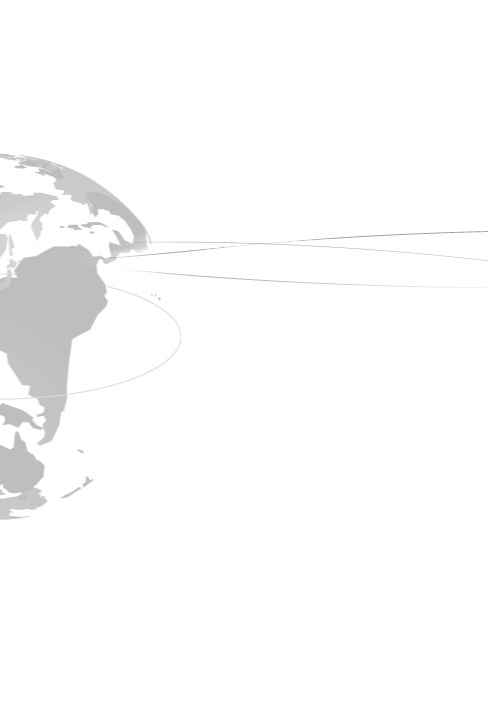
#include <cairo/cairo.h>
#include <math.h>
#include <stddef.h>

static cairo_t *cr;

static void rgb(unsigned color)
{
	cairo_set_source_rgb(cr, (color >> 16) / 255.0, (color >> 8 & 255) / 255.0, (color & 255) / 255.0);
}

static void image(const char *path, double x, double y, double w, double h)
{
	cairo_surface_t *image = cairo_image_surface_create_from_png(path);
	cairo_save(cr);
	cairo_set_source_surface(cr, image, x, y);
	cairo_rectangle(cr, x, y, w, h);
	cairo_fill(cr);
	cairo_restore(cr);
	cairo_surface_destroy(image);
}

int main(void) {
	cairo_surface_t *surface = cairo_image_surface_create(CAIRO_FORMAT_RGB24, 488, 703);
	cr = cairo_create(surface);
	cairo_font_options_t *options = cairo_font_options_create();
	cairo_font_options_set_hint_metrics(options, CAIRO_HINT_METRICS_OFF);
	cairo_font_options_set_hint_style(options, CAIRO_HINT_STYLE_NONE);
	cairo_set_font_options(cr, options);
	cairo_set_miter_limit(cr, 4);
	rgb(0xffffff);
	cairo_paint(cr);
	image("img/1.png", 0, 153, 488, 367);
	cairo_surface_write_to_png(surface, "page.png");
	cairo_font_options_destroy(options);
	cairo_destroy(cr);
	cairo_surface_destroy(surface);
	return 0;
}
